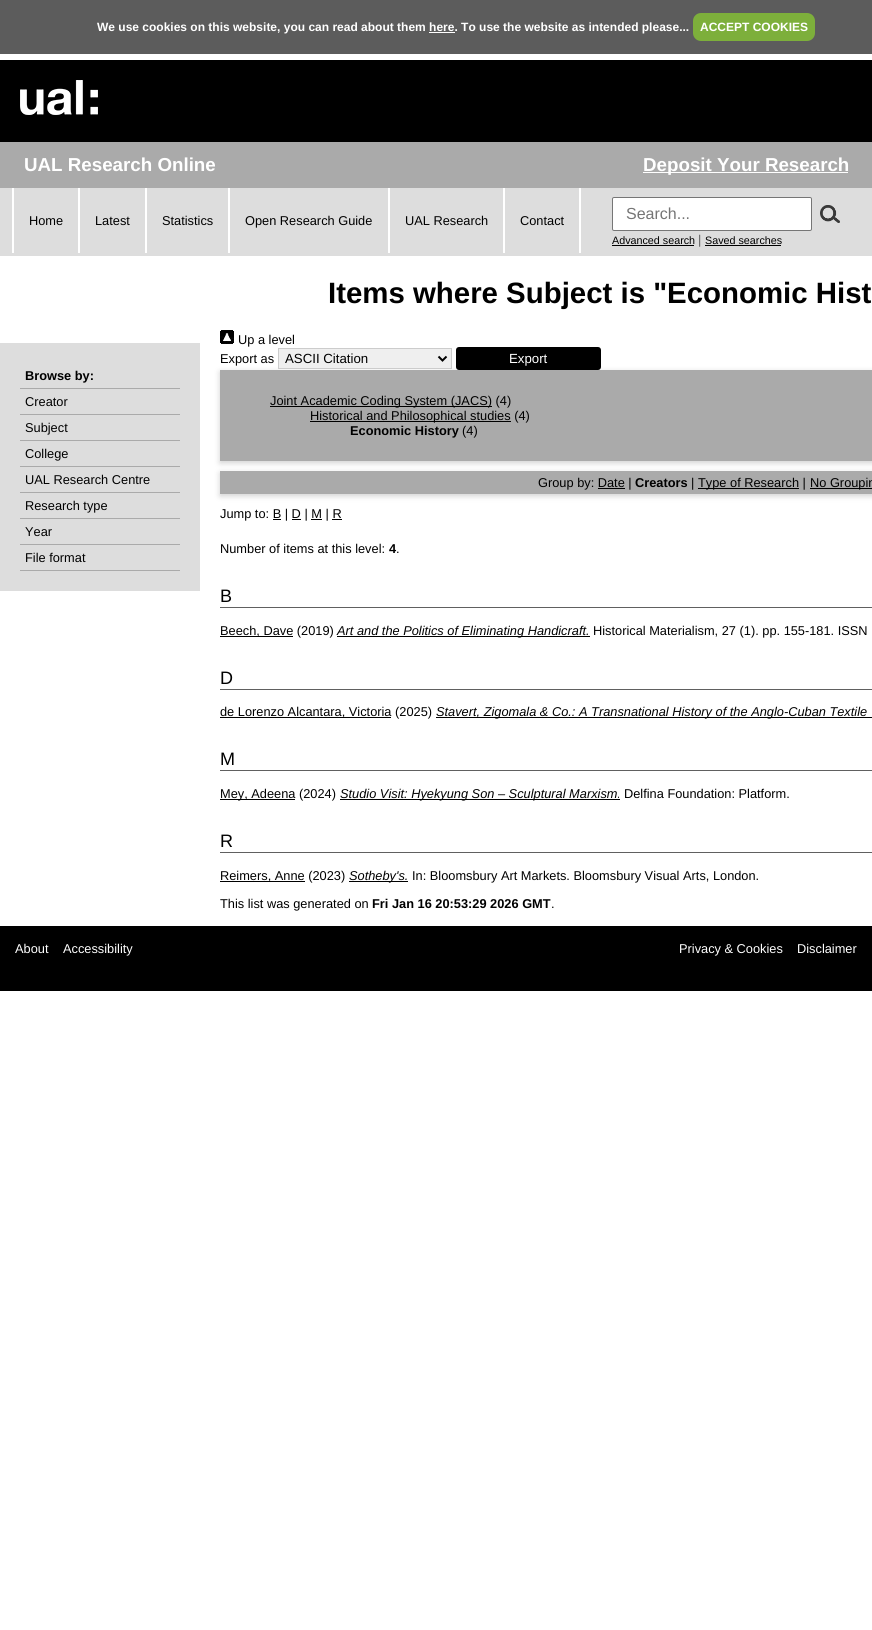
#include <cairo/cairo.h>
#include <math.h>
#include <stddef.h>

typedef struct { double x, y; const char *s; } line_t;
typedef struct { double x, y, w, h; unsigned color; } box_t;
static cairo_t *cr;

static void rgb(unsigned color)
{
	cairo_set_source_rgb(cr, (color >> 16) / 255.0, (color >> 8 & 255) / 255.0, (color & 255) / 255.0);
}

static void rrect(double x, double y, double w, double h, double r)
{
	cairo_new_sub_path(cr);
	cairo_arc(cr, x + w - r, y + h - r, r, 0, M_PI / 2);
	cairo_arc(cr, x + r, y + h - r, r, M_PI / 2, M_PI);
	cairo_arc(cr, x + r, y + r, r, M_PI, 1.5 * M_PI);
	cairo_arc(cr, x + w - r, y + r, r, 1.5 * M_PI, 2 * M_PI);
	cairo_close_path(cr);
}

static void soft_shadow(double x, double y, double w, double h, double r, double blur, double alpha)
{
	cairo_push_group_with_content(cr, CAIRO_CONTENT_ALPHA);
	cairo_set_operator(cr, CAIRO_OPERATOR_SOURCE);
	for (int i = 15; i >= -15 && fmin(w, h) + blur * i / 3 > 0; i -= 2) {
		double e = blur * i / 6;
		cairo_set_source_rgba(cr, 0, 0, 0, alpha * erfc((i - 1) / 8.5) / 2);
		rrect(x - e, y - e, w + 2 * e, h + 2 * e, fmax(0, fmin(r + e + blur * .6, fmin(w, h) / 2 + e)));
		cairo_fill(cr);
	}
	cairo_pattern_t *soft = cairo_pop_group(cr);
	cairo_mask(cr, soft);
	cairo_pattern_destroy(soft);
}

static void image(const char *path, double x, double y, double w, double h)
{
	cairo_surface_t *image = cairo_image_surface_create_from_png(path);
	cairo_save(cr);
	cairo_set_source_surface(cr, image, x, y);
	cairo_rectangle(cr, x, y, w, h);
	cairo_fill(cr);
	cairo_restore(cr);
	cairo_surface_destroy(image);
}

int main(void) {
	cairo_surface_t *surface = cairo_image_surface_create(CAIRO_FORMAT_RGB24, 872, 1630);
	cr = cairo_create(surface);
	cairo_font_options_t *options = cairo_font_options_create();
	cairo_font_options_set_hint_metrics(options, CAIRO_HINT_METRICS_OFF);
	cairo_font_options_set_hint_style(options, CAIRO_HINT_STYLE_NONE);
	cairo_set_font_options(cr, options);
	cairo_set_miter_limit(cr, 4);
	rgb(0xffffff);
	cairo_paint(cr);
	rgb(0x5c5c5c);
	cairo_rectangle(cr, 0, 0, 872, 54);
	cairo_fill(cr);
	rgb(0x7daf3b);
	rrect(693, 13, 122, 28, 8);
	cairo_fill(cr);
	rgb(0xffffff);
	cairo_rectangle(cr, 429, 32, 26, 1);
	cairo_fill(cr);
	rgb(0x000000);
	cairo_rectangle(cr, 0, 60, 872, 82);
	cairo_fill(cr);
	image("img/1.png", 20, 80, 78, 35);
	{
		static const box_t items[] = {
			{0, 142, 872, 46, 0xaaaaaa},
			{643, 172, 205, 1, 0xffffff},
			{0, 188, 872, 68, 0xdddddd},
			{12, 188, 2, 65, 0xffffff},
			{78, 188, 2, 65, 0xffffff},
			{145, 188, 2, 65, 0xffffff},
			{228, 188, 2, 65, 0xffffff},
			{388, 188, 2, 65, 0xffffff},
			{579, 188, 2, 65, 0xffffff},
			{503, 188, 2, 65, 0xffffff},
		};
		for (size_t i = 0; i < sizeof items / sizeof *items; i++) {
			rgb(items[i].color);
			cairo_rectangle(cr, items[i].x, items[i].y, items[i].w, items[i].h);
			cairo_fill(cr);
		}
	}
	rrect(612.5, 197.5, 199, 33, 1.5);
	cairo_fill_preserve(cr);
	rgb(0x767676);
	cairo_set_line_width(cr, 1);
	cairo_stroke(cr);
	image("img/2.png", 820, 205, 20, 18);
	{
		static const box_t items[] = {
			{612, 245, 82, 1, 0x000000},
			{705, 245, 76, 1, 0x000000},
			{0, 343, 200, 248, 0xdddddd},
			{20, 388, 160, 1, 0xaaaaaa},
			{20, 414, 160, 1, 0xaaaaaa},
			{20, 440, 160, 1, 0xaaaaaa},
			{20, 466, 160, 1, 0xaaaaaa},
			{20, 492, 160, 1, 0xaaaaaa},
			{20, 518, 160, 1, 0xaaaaaa},
			{20, 544, 160, 1, 0xaaaaaa},
			{20, 570, 160, 1, 0xaaaaaa},
		};
		for (size_t i = 0; i < sizeof items / sizeof *items; i++) {
			rgb(items[i].color);
			cairo_rectangle(cr, items[i].x, items[i].y, items[i].w, items[i].h);
			cairo_fill(cr);
		}
	}
	image("img/3.png", 220, 330, 14, 14);
	rgb(0x646464);
	soft_shadow(220, 372, 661, 91, 0, 3, 0.3);
	rgb(0xefefef);
	cairo_rectangle(cr, 278.5, 348.5, 173, 20);
	cairo_fill_preserve(cr);
	rgb(0xcccccc);
	cairo_stroke(cr);
	cairo_new_path(cr);
	cairo_move_to(cr, 438.5, 356.5);
	cairo_line_to(cr, 442.5, 360.5);
	cairo_line_to(cr, 446.5, 356.5);
	rgb(0x000000);
	cairo_set_line_width(cr, 2);
	cairo_stroke(cr);
	rrect(457, 348, 143, 21, 2);
	cairo_fill_preserve(cr);
	cairo_stroke(cr);
	{
		static const box_t items[] = {
			{220, 370, 652, 91, 0xaaaaaa},
			{270, 406, 222, 1, 0x000000},
			{310, 421, 201, 1, 0x000000},
		};
		for (size_t i = 0; i < sizeof items / sizeof *items; i++) {
			rgb(items[i].color);
			cairo_rectangle(cr, items[i].x, items[i].y, items[i].w, items[i].h);
			cairo_fill(cr);
		}
	}
	rgb(0x646464);
	soft_shadow(220, 473, 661, 23, 0, 3, 0.3);
	{
		static const box_t items[] = {
			{220, 471, 652, 23, 0xaaaaaa},
			{698, 488, 101, 1, 0x000000},
			{810, 488, 62, 1, 0x000000},
			{598, 488, 27, 1, 0x000000},
			{273, 519, 8, 1, 0x000000},
			{292, 519, 9, 1, 0x000000},
			{311, 519, 11, 1, 0x000000},
			{332, 519, 10, 1, 0x000000},
			{220, 607, 652, 1, 0x606060},
			{220, 636, 73, 1, 0x000000},
			{337, 636, 253, 1, 0x000000},
			{220, 689, 652, 1, 0x606060},
			{220, 717, 171, 1, 0x000000},
			{436, 717, 436, 1, 0x000000},
			{220, 770, 652, 1, 0x606060},
			{220, 799, 75, 1, 0x000000},
			{340, 799, 280, 1, 0x000000},
			{220, 852, 652, 1, 0x606060},
			{220, 881, 85, 1, 0x000000},
			{349, 881, 59, 1, 0x000000},
			{0, 926, 872, 65, 0x000000},
		};
		for (size_t i = 0; i < sizeof items / sizeof *items; i++) {
			rgb(items[i].color);
			cairo_rectangle(cr, items[i].x, items[i].y, items[i].w, items[i].h);
			cairo_fill(cr);
		}
	}
	cairo_select_font_face(cr, "Liberation Sans", CAIRO_FONT_SLANT_NORMAL, CAIRO_FONT_WEIGHT_BOLD);
	cairo_set_font_size(cr, 12);
	rgb(0xffffff);
	cairo_move_to(cr, 97, 31);
	cairo_show_text(cr, "We use cookies on this website, you can read about them here. To use the website as intended please...");
	cairo_move_to(cr, 700, 31);
	cairo_show_text(cr, "ACCEPT COOKIES");
	cairo_set_font_size(cr, 18.75);
	cairo_move_to(cr, 24, 171);
	cairo_show_text(cr, "UAL Research Online");
	cairo_move_to(cr, 643, 171);
	cairo_show_text(cr, "Deposit Your Research");
	cairo_select_font_face(cr, "Liberation Sans", CAIRO_FONT_SLANT_NORMAL, CAIRO_FONT_WEIGHT_NORMAL);
	cairo_set_font_size(cr, 12.8);
	rgb(0x000000);
	{
		static const line_t items[] = {
			{29, 225, "Home"},
			{95, 225, "Latest"},
			{162, 225, "Statistics"},
			{245, 225, "Open Research Guide"},
			{405, 225, "UAL Research"},
			{520, 225, "Contact"},
		};
		for (size_t i = 0; i < sizeof items / sizeof *items; i++) {
			cairo_move_to(cr, items[i].x, items[i].y);
			cairo_show_text(cr, items[i].s);
		}
	}
	cairo_set_font_size(cr, 16);
	rgb(0x757575);
	cairo_move_to(cr, 626, 219);
	cairo_show_text(cr, "Search...");
	cairo_set_font_size(cr, 10.75);
	rgb(0x000000);
	cairo_move_to(cr, 612, 244);
	cairo_show_text(cr, "Advanced search");
	cairo_set_font_size(cr, 12.8);
	rgb(0x606060);
	cairo_move_to(cr, 698, 244);
	cairo_show_text(cr, "|");
	cairo_set_font_size(cr, 10.75);
	rgb(0x000000);
	cairo_move_to(cr, 705, 244);
	cairo_show_text(cr, "Saved searches");
	cairo_select_font_face(cr, "Liberation Sans", CAIRO_FONT_SLANT_NORMAL, CAIRO_FONT_WEIGHT_BOLD);
	cairo_set_font_size(cr, 29.4);
	cairo_move_to(cr, 328, 303);
	cairo_show_text(cr, "Items where Subject is \"Economic Hist");
	cairo_set_font_size(cr, 12.8);
	cairo_move_to(cr, 25, 380);
	cairo_show_text(cr, "Browse by:");
	cairo_select_font_face(cr, "Liberation Sans", CAIRO_FONT_SLANT_NORMAL, CAIRO_FONT_WEIGHT_NORMAL);
	{
		static const line_t items[] = {
			{25, 406, "Creator"},
			{25, 432, "Subject"},
			{25, 458, "College"},
			{25, 484, "UAL Research Centre"},
			{25, 510, "Research type"},
			{25, 536, "Year"},
			{25, 562, "File format"},
			{238, 344, "Up a level"},
			{220, 363, "Export as"},
		};
		for (size_t i = 0; i < sizeof items / sizeof *items; i++) {
			cairo_move_to(cr, items[i].x, items[i].y);
			cairo_show_text(cr, items[i].s);
		}
	}
	cairo_set_font_size(cr, 13.25);
	cairo_move_to(cr, 285, 363);
	cairo_show_text(cr, "ASCII Citation");
	rgb(0xffffff);
	cairo_move_to(cr, 509, 363);
	cairo_show_text(cr, "Export");
	cairo_set_font_size(cr, 12.8);
	rgb(0x000000);
	cairo_move_to(cr, 270, 405);
	cairo_show_text(cr, "Joint Academic Coding System (JACS) (4)");
	cairo_move_to(cr, 310, 420);
	cairo_show_text(cr, "Historical and Philosophical studies (4)");
	cairo_select_font_face(cr, "Liberation Sans", CAIRO_FONT_SLANT_NORMAL, CAIRO_FONT_WEIGHT_BOLD);
	cairo_move_to(cr, 350, 435);
	cairo_show_text(cr, "Economic History");
	cairo_select_font_face(cr, "Liberation Sans", CAIRO_FONT_SLANT_NORMAL, CAIRO_FONT_WEIGHT_NORMAL);
	cairo_move_to(cr, 462, 435);
	cairo_show_text(cr, "(4)");
	cairo_move_to(cr, 538, 487);
	cairo_show_text(cr, "Group by: Date |");
	cairo_select_font_face(cr, "Liberation Sans", CAIRO_FONT_SLANT_NORMAL, CAIRO_FONT_WEIGHT_BOLD);
	cairo_move_to(cr, 635, 487);
	cairo_show_text(cr, "Creators");
	cairo_select_font_face(cr, "Liberation Sans", CAIRO_FONT_SLANT_NORMAL, CAIRO_FONT_WEIGHT_NORMAL);
	{
		static const line_t items[] = {
			{691, 487, "|"},
			{698, 487, "Type of Research |"},
			{810, 487, "No Groupin"},
			{220, 518, "Jump to: B | D | M | R"},
			{220, 553, "Number of items at this level:"},
		};
		for (size_t i = 0; i < sizeof items / sizeof *items; i++) {
			cairo_move_to(cr, items[i].x, items[i].y);
			cairo_show_text(cr, items[i].s);
		}
	}
	cairo_select_font_face(cr, "Liberation Sans", CAIRO_FONT_SLANT_NORMAL, CAIRO_FONT_WEIGHT_BOLD);
	cairo_move_to(cr, 389, 553);
	cairo_show_text(cr, "4");
	cairo_select_font_face(cr, "Liberation Sans", CAIRO_FONT_SLANT_NORMAL, CAIRO_FONT_WEIGHT_NORMAL);
	cairo_move_to(cr, 396, 553);
	cairo_show_text(cr, ".");
	cairo_set_font_size(cr, 18);
	cairo_move_to(cr, 220, 602);
	cairo_show_text(cr, "B");
	cairo_set_font_size(cr, 12.8);
	cairo_move_to(cr, 220, 635);
	cairo_show_text(cr, "Beech, Dave (2019)");
	cairo_select_font_face(cr, "Liberation Sans", CAIRO_FONT_SLANT_ITALIC, CAIRO_FONT_WEIGHT_NORMAL);
	cairo_move_to(cr, 337, 635);
	cairo_show_text(cr, "Art and the Politics of Eliminating Handicraft.");
	cairo_select_font_face(cr, "Liberation Sans", CAIRO_FONT_SLANT_NORMAL, CAIRO_FONT_WEIGHT_NORMAL);
	cairo_move_to(cr, 593, 635);
	cairo_show_text(cr, "Historical Materialism, 27 (1). pp. 155-181. ISSN");
	cairo_set_font_size(cr, 18);
	cairo_move_to(cr, 220, 684);
	cairo_show_text(cr, "D");
	cairo_set_font_size(cr, 12.8);
	cairo_move_to(cr, 220, 716);
	cairo_show_text(cr, "de Lorenzo Alcantara, Victoria (2025)");
	cairo_select_font_face(cr, "Liberation Sans", CAIRO_FONT_SLANT_ITALIC, CAIRO_FONT_WEIGHT_NORMAL);
	cairo_move_to(cr, 436, 716);
	cairo_show_text(cr, "Stavert, Zigomala & Co.: A Transnational History of the Anglo-Cuban Textile");
	cairo_select_font_face(cr, "Liberation Sans", CAIRO_FONT_SLANT_NORMAL, CAIRO_FONT_WEIGHT_NORMAL);
	cairo_set_font_size(cr, 18);
	cairo_move_to(cr, 220, 765);
	cairo_show_text(cr, "M");
	cairo_set_font_size(cr, 12.8);
	cairo_move_to(cr, 220, 798);
	cairo_show_text(cr, "Mey, Adeena (2024)");
	cairo_select_font_face(cr, "Liberation Sans", CAIRO_FONT_SLANT_ITALIC, CAIRO_FONT_WEIGHT_NORMAL);
	cairo_move_to(cr, 340, 798);
	cairo_show_text(cr, "Studio Visit: Hyekyung Son – Sculptural Marxism.");
	cairo_select_font_face(cr, "Liberation Sans", CAIRO_FONT_SLANT_NORMAL, CAIRO_FONT_WEIGHT_NORMAL);
	cairo_move_to(cr, 624, 798);
	cairo_show_text(cr, "Delfina Foundation: Platform.");
	cairo_set_font_size(cr, 18);
	cairo_move_to(cr, 220, 847);
	cairo_show_text(cr, "R");
	cairo_set_font_size(cr, 12.8);
	cairo_move_to(cr, 220, 880);
	cairo_show_text(cr, "Reimers, Anne (2023)");
	cairo_select_font_face(cr, "Liberation Sans", CAIRO_FONT_SLANT_ITALIC, CAIRO_FONT_WEIGHT_NORMAL);
	cairo_move_to(cr, 349, 880);
	cairo_show_text(cr, "Sotheby's.");
	cairo_select_font_face(cr, "Liberation Sans", CAIRO_FONT_SLANT_NORMAL, CAIRO_FONT_WEIGHT_NORMAL);
	cairo_move_to(cr, 412, 880);
	cairo_show_text(cr, "In: Bloomsbury Art Markets. Bloomsbury Visual Arts, London.");
	cairo_move_to(cr, 220, 908);
	cairo_show_text(cr, "This list was generated on");
	cairo_select_font_face(cr, "Liberation Sans", CAIRO_FONT_SLANT_NORMAL, CAIRO_FONT_WEIGHT_BOLD);
	cairo_move_to(cr, 372, 908);
	cairo_show_text(cr, "Fri Jan 16 20:53:29 2026 GMT");
	cairo_select_font_face(cr, "Liberation Sans", CAIRO_FONT_SLANT_NORMAL, CAIRO_FONT_WEIGHT_NORMAL);
	cairo_move_to(cr, 551, 908);
	cairo_show_text(cr, ".");
	rgb(0xffffff);
	{
		static const line_t items[] = {
			{15, 953, "About"},
			{63, 953, "Accessibility"},
			{679, 953, "Privacy & Cookies"},
			{797, 953, "Disclaimer"},
		};
		for (size_t i = 0; i < sizeof items / sizeof *items; i++) {
			cairo_move_to(cr, items[i].x, items[i].y);
			cairo_show_text(cr, items[i].s);
		}
	}
	cairo_surface_write_to_png(surface, "page.png");
	cairo_font_options_destroy(options);
	cairo_destroy(cr);
	cairo_surface_destroy(surface);
	return 0;
}
